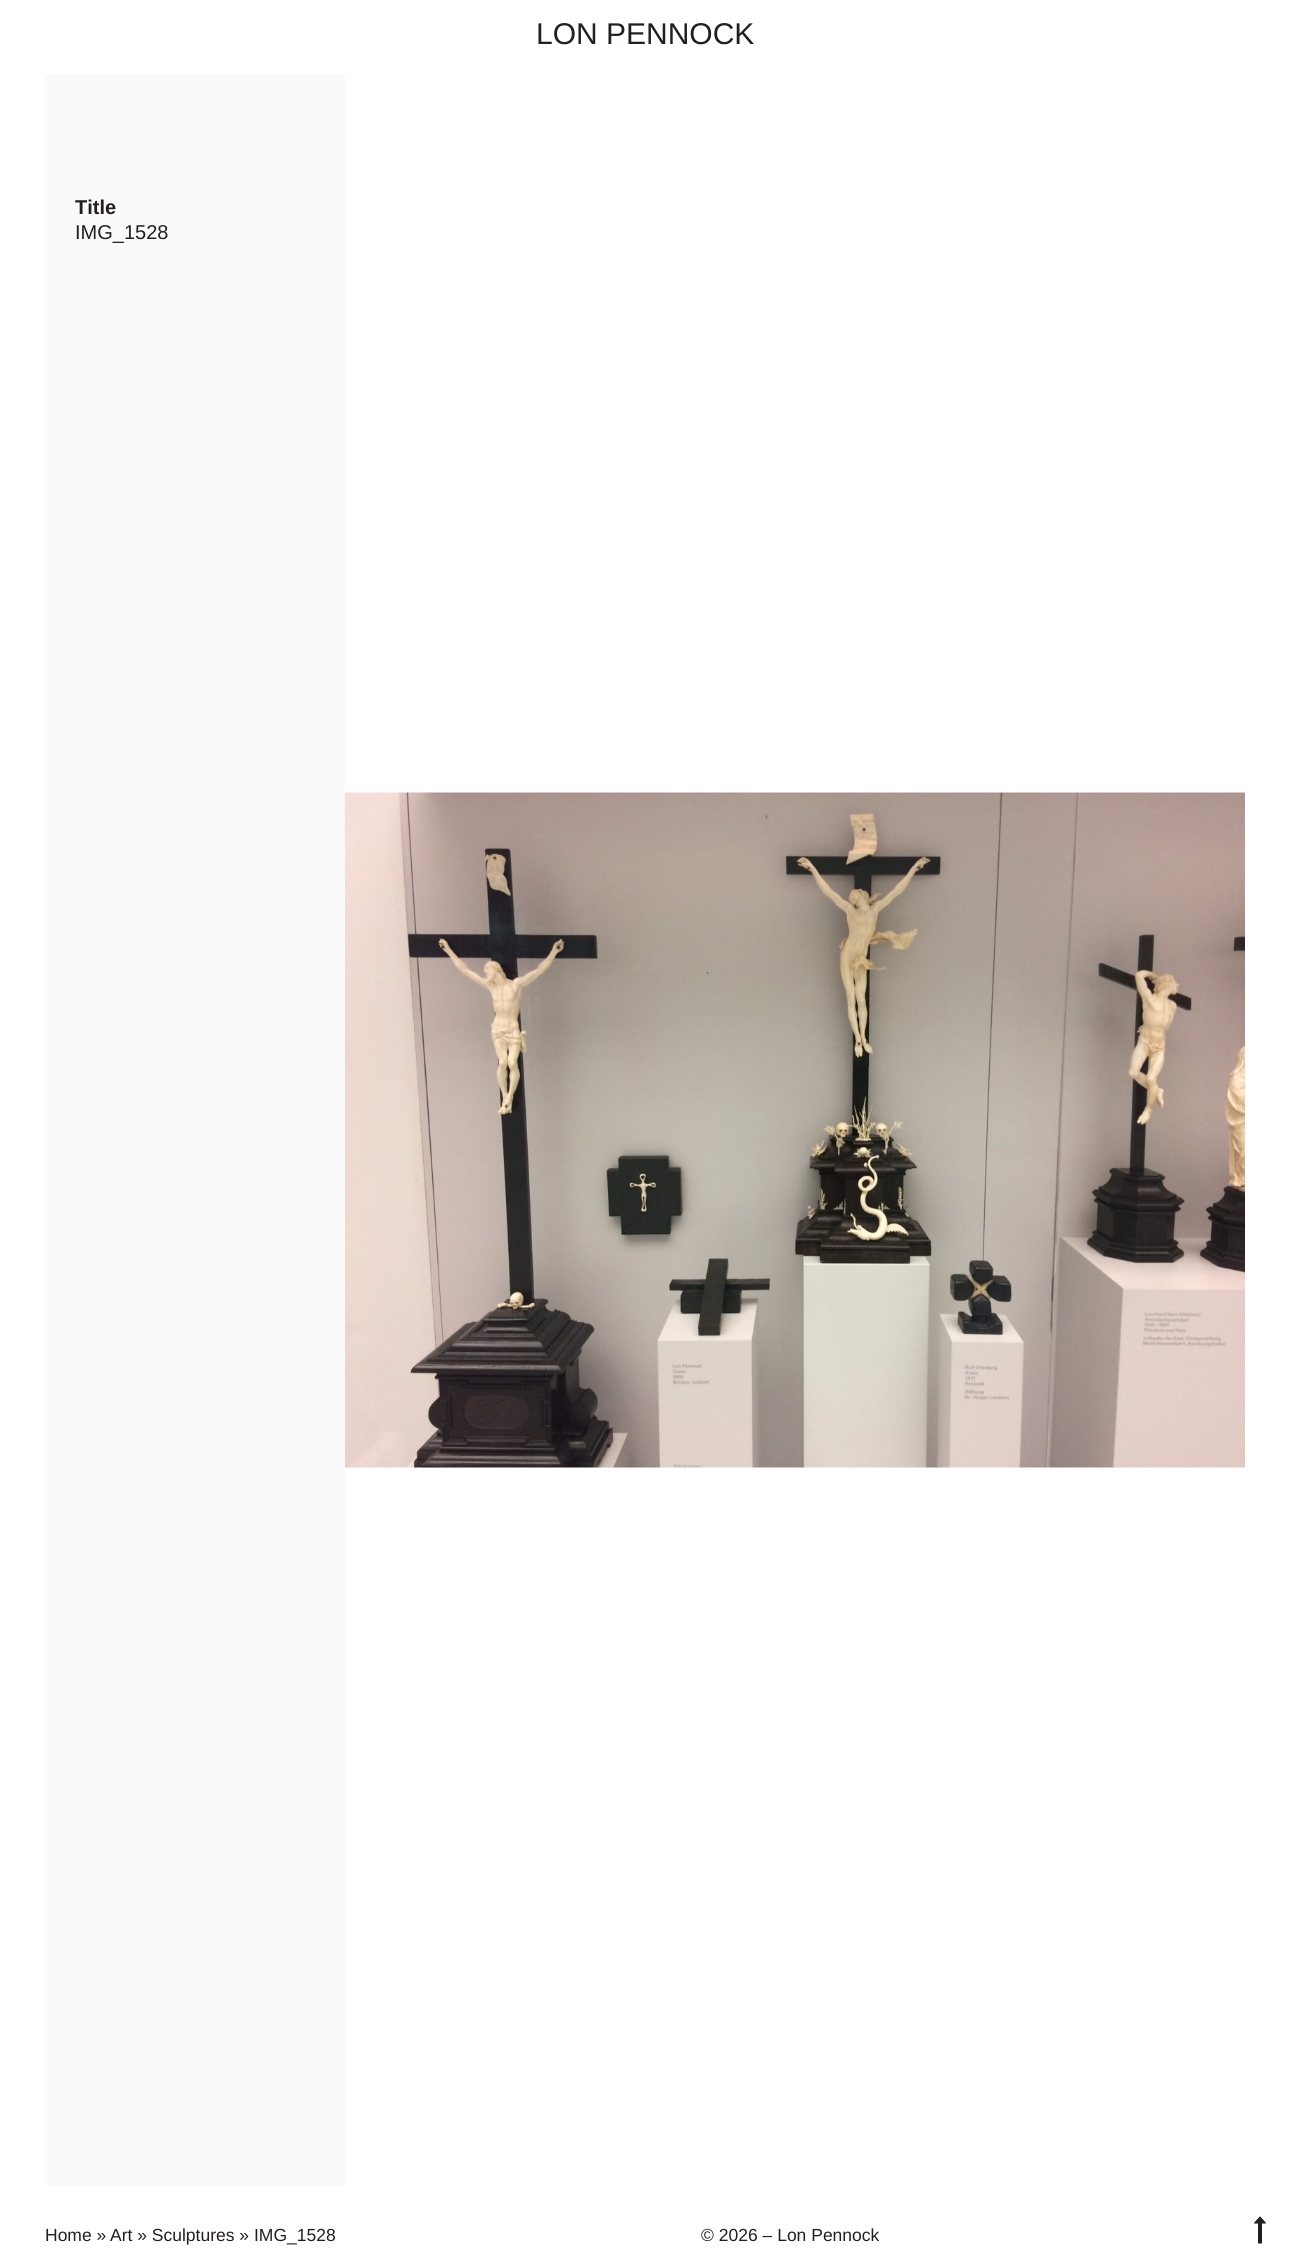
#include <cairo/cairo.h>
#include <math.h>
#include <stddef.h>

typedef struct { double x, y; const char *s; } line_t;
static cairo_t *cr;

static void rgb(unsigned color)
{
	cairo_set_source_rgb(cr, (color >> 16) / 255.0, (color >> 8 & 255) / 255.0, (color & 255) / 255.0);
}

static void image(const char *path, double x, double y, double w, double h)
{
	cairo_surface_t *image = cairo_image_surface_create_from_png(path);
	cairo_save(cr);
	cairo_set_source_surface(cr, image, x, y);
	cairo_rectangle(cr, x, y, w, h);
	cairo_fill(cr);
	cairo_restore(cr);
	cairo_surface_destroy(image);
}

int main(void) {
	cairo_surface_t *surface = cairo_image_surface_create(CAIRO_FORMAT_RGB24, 1289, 2259);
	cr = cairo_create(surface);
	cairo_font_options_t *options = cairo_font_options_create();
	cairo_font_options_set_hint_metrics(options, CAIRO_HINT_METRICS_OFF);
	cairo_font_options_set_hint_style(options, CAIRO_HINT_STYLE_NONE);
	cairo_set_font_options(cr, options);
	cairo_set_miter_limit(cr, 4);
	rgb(0xffffff);
	cairo_paint(cr);
	rgb(0xfafafb);
	cairo_rectangle(cr, 45, 75, 300, 2110);
	cairo_fill(cr);
	image("img/1.png", 345, 792, 900, 676);
	image("img/2.png", 1254, 2216, 12, 28);
	cairo_select_font_face(cr, "Liberation Sans", CAIRO_FONT_SLANT_NORMAL, CAIRO_FONT_WEIGHT_NORMAL);
	cairo_set_font_size(cr, 30);
	rgb(0x231f20);
	cairo_move_to(cr, 536, 44);
	cairo_show_text(cr, "LON PENNOCK");
	cairo_select_font_face(cr, "Liberation Sans", CAIRO_FONT_SLANT_NORMAL, CAIRO_FONT_WEIGHT_BOLD);
	cairo_set_font_size(cr, 20);
	cairo_move_to(cr, 75, 214);
	cairo_show_text(cr, "Title");
	cairo_select_font_face(cr, "Liberation Sans", CAIRO_FONT_SLANT_NORMAL, CAIRO_FONT_WEIGHT_NORMAL);
	cairo_move_to(cr, 75, 239);
	cairo_show_text(cr, "IMG_1528");
	cairo_set_font_size(cr, 17.5);
	{
		static const line_t items[] = {
			{45, 2241, "Home »"},
			{110, 2241, "Art » Sculptures » IMG_1528"},
			{701, 2241, "© 2026 – Lon Pennock"},
		};
		for (size_t i = 0; i < sizeof items / sizeof *items; i++) {
			cairo_move_to(cr, items[i].x, items[i].y);
			cairo_show_text(cr, items[i].s);
		}
	}
	cairo_surface_write_to_png(surface, "page.png");
	cairo_font_options_destroy(options);
	cairo_destroy(cr);
	cairo_surface_destroy(surface);
	return 0;
}
